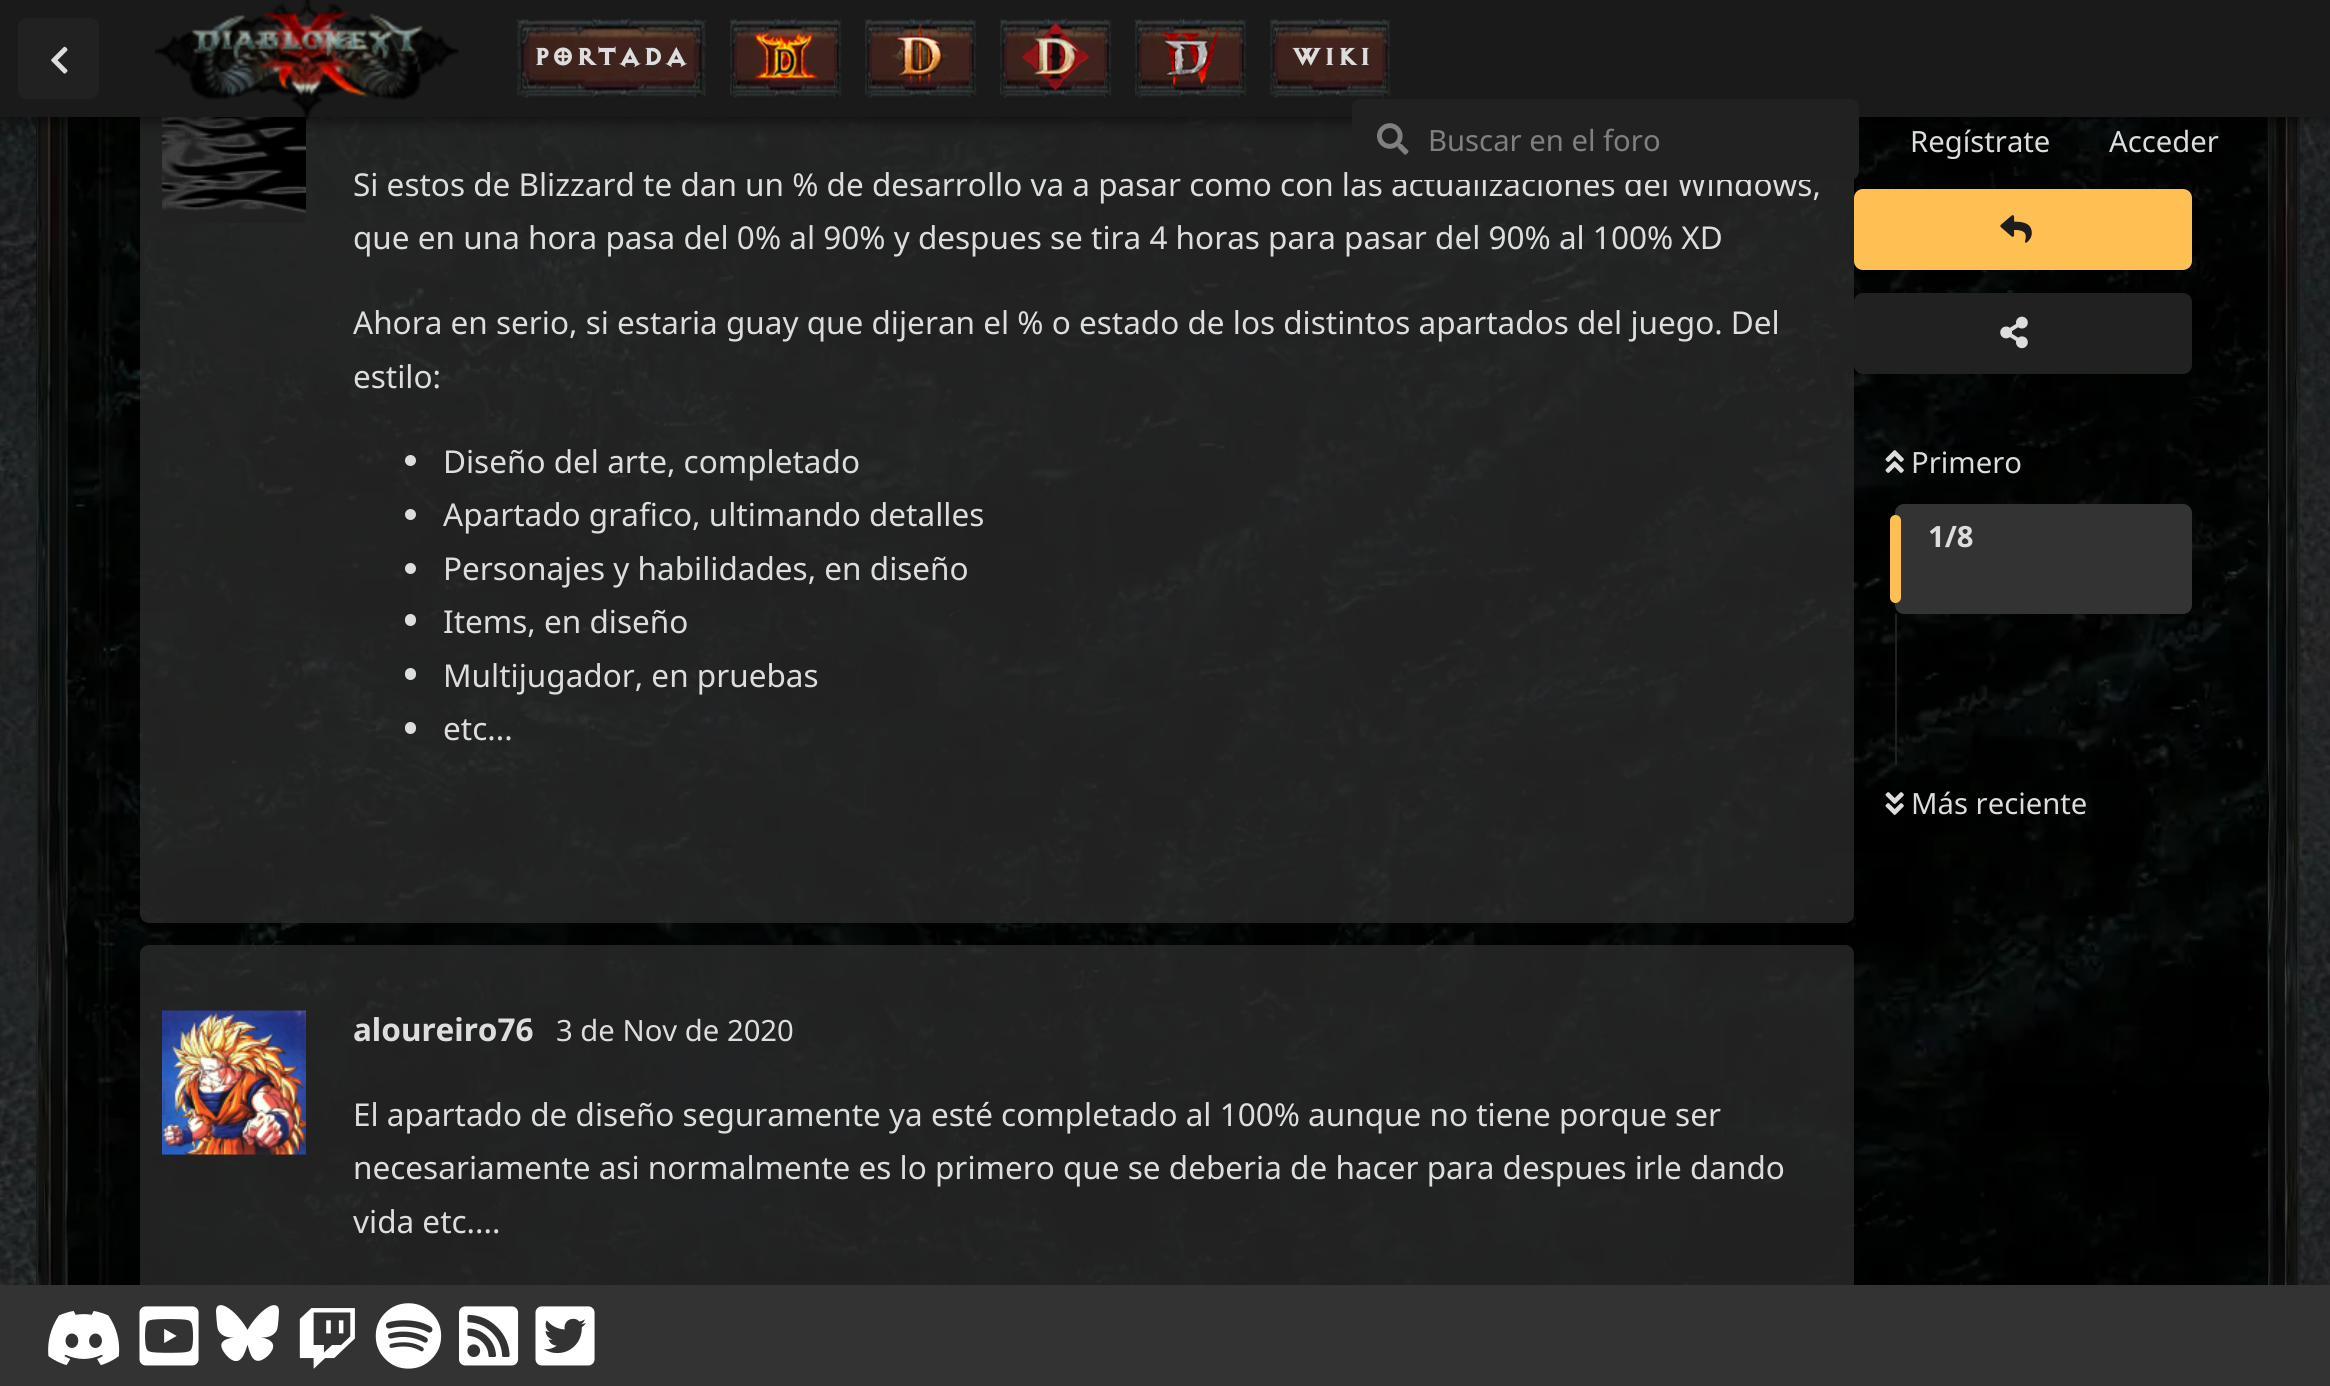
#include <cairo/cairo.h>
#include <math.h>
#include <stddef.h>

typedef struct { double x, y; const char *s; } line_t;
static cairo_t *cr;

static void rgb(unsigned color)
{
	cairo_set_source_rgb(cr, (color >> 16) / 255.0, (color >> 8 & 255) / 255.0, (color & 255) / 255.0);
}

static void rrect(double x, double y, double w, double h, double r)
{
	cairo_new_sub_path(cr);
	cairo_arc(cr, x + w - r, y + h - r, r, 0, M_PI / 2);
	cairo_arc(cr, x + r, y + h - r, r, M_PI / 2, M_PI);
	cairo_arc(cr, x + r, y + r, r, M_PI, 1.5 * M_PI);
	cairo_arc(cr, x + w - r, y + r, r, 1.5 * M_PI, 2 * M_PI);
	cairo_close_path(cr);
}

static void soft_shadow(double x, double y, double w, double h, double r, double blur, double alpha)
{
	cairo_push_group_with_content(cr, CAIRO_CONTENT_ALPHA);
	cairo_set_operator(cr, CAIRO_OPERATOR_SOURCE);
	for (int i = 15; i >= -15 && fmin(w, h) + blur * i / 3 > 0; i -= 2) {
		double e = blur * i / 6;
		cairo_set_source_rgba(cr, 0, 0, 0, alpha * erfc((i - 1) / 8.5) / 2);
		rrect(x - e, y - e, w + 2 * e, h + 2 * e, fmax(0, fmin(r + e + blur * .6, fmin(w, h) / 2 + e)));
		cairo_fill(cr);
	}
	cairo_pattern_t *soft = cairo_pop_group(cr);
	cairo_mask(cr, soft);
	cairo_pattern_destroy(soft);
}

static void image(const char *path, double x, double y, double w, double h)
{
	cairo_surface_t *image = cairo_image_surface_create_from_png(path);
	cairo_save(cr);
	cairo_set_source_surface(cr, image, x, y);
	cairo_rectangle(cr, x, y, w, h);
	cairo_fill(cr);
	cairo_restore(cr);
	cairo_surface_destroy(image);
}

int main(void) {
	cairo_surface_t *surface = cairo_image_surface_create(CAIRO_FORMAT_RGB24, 2330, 1386);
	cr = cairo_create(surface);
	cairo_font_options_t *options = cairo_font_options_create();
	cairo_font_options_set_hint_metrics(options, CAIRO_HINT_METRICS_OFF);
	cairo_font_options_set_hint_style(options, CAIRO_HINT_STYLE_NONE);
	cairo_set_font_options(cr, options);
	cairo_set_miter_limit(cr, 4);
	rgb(0xffffff);
	cairo_paint(cr);
	image("img/12.png", 0, 117, 2330, 1168);
	image("img/13.png", 66, 117, 2204, 1168);
	image("img/14.png", 36, 117, 2264, 1168);
	cairo_set_source_rgba(cr, 0.2, 0.2, 0.2, 0.66);
	rrect(140, 14, 1714, 909, 9);
	cairo_fill(cr);
	rgb(0x212121);
	cairo_rectangle(cr, 162, 117, 144, 106);
	cairo_fill(cr);
	image("img/15.png", 162, 117, 144, 97);
	rgb(0x000000);
	soft_shadow(0, 5, 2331, 117, 0, 7, 0.5);
	rgb(0x1a1a1a);
	cairo_rectangle(cr, 0, 0, 2330, 117);
	cairo_fill(cr);
	rgb(0x212121);
	rrect(18, 18, 81, 81, 9);
	cairo_fill(cr);
	image("img/1.png", 51, 46, 17, 28);
	image("img/2.png", 155, 0, 304, 120);
	image("img/3.png", 516, 18, 191, 80);
	image("img/4.png", 730, 18, 112, 80);
	image("img/5.png", 753, 30, 66, 51);
	image("img/4.png", 865, 18, 112, 80);
	image("img/6.png", 891, 23, 58, 66);
	image("img/4.png", 1000, 18, 112, 80);
	image("img/7.png", 1021, 22, 69, 69);
	image("img/8.png", 1135, 18, 112, 80);
	image("img/9.png", 1160, 27, 61, 60);
	image("img/10.png", 1270, 18, 121, 80);
	rgb(0xdddddd);
	cairo_arc(cr, 410.5, 460.5, 5.5, 0, 2 * M_PI);
	cairo_fill(cr);
	cairo_arc(cr, 410.5, 514.5, 5.5, 0, 2 * M_PI);
	cairo_fill(cr);
	cairo_arc(cr, 410.5, 568.5, 5.5, 0, 2 * M_PI);
	cairo_fill(cr);
	rrect(405, 614, 11, 12, 5.5);
	cairo_fill(cr);
	rrect(405, 668, 11, 12, 5.5);
	cairo_fill(cr);
	rrect(405, 722, 11, 12, 5.5);
	cairo_fill(cr);
	cairo_set_source_rgba(cr, 0.2, 0.2, 0.2, 0.66);
	rrect(140, 945, 1714, 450, 9);
	cairo_fill(cr);
	rgb(0x212121);
	cairo_rectangle(cr, 162, 1010, 144, 1);
	cairo_fill(cr);
	image("img/16.png", 162, 1010, 144, 145);
	rgb(0xfec052);
	rrect(1854, 189, 338, 81, 9);
	cairo_fill(cr);
	image("img/17.png", 2000, 215, 32, 28);
	rgb(0x212121);
	rrect(1854, 293, 338, 81, 9);
	cairo_fill(cr);
	image("img/18.png", 2000, 316, 28, 33);
	image("img/19.png", 1885, 450, 19, 23);
	rgb(0x333333);
	rrect(1895, 504, 297, 110, 9);
	cairo_fill(cr);
	rgb(0xfec052);
	rrect(1890, 515, 11, 88, 5.5);
	cairo_fill(cr);
	rgb(0x212121);
	cairo_rectangle(cr, 1895, 614, 2, 151);
	cairo_fill(cr);
	image("img/20.png", 1885, 792, 19, 23);
	rgb(0x333333);
	cairo_rectangle(cr, 0, 1285, 2330, 101);
	cairo_fill(cr);
	image("img/21.png", 48, 1311, 72, 55);
	image("img/22.png", 139, 1306, 60, 60);
	image("img/23.png", 216, 1305, 63, 56);
	image("img/24.png", 299, 1308, 56, 61);
	image("img/25.png", 375, 1303, 67, 66);
	image("img/26.png", 459, 1306, 60, 60);
	image("img/27.png", 535, 1306, 60, 60);
	cairo_select_font_face(cr, "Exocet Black", CAIRO_FONT_SLANT_NORMAL, CAIRO_FONT_WEIGHT_NORMAL);
	cairo_set_font_size(cr, 29.25);
	rgb(0xdddddd);
	cairo_move_to(cr, 533, 65);
	cairo_show_text(cr, "PORTADA");
	cairo_move_to(cr, 1291, 65);
	cairo_show_text(cr, "WIKI");
	cairo_select_font_face(cr, "Noto Sans", CAIRO_FONT_SLANT_NORMAL, CAIRO_FONT_WEIGHT_NORMAL);
	cairo_move_to(cr, 1910, 152);
	cairo_show_text(cr, "Regístrate");
	cairo_move_to(cr, 2109, 152);
	cairo_show_text(cr, "Acceder");
	cairo_set_font_size(cr, 31.5);
	cairo_move_to(cr, 353, 196);
	cairo_show_text(cr, "Si estos de Blizzard te dan un % de desarrollo va a pasar como con las actualizaciones del Windows,");
	rgb(0x212121);
	rrect(1352, 99, 507, 81, 9);
	cairo_fill(cr);
	image("img/11.png", 1377, 123, 32, 32);
	cairo_set_font_size(cr, 29.25);
	rgb(0x808080);
	cairo_move_to(cr, 1428, 151);
	cairo_show_text(cr, "Buscar en el foro");
	cairo_set_font_size(cr, 31.5);
	rgb(0xdddddd);
	{
		static const line_t items[] = {
			{353, 249, "que en una hora pasa del 0% al 90% y despues se tira 4 horas para pasar del 90% al 100% XD"},
			{353, 334, "Ahora en serio, si estaria guay que dijeran el % o estado de los distintos apartados del juego. Del"},
			{353, 388, "estilo:"},
			{443, 473, "Diseño del arte, completado"},
			{443, 526, "Apartado grafico, ultimando detalles"},
			{443, 580, "Personajes y habilidades, en diseño"},
			{443, 633, "Items, en diseño"},
			{443, 687, "Multijugador, en pruebas"},
			{443, 740, "etc..."},
		};
		for (size_t i = 0; i < sizeof items / sizeof *items; i++) {
			cairo_move_to(cr, items[i].x, items[i].y);
			cairo_show_text(cr, items[i].s);
		}
	}
	cairo_select_font_face(cr, "Noto Sans", CAIRO_FONT_SLANT_NORMAL, CAIRO_FONT_WEIGHT_BOLD);
	cairo_move_to(cr, 353, 1041);
	cairo_show_text(cr, "aloureiro76");
	cairo_select_font_face(cr, "Noto Sans", CAIRO_FONT_SLANT_NORMAL, CAIRO_FONT_WEIGHT_NORMAL);
	cairo_set_font_size(cr, 29.25);
	cairo_move_to(cr, 556, 1041);
	cairo_show_text(cr, "3 de Nov de 2020");
	cairo_set_font_size(cr, 31.5);
	{
		static const line_t items[] = {
			{353, 1126, "El apartado de diseño seguramente ya esté completado al 100% aunque no tiene porque ser"},
			{353, 1179, "necesariamente asi normalmente es lo primero que se deberia de hacer para despues irle dando"},
			{353, 1233, "vida etc...."},
		};
		for (size_t i = 0; i < sizeof items / sizeof *items; i++) {
			cairo_move_to(cr, items[i].x, items[i].y);
			cairo_show_text(cr, items[i].s);
		}
	}
	cairo_set_font_size(cr, 29.25);
	cairo_move_to(cr, 1911, 473);
	cairo_show_text(cr, "Primero");
	cairo_select_font_face(cr, "Noto Sans", CAIRO_FONT_SLANT_NORMAL, CAIRO_FONT_WEIGHT_BOLD);
	cairo_move_to(cr, 1928, 547);
	cairo_show_text(cr, "1/8");
	cairo_select_font_face(cr, "Noto Sans", CAIRO_FONT_SLANT_NORMAL, CAIRO_FONT_WEIGHT_NORMAL);
	cairo_move_to(cr, 1911, 814);
	cairo_show_text(cr, "Más reciente");
	cairo_surface_write_to_png(surface, "page.png");
	cairo_font_options_destroy(options);
	cairo_destroy(cr);
	cairo_surface_destroy(surface);
	return 0;
}
